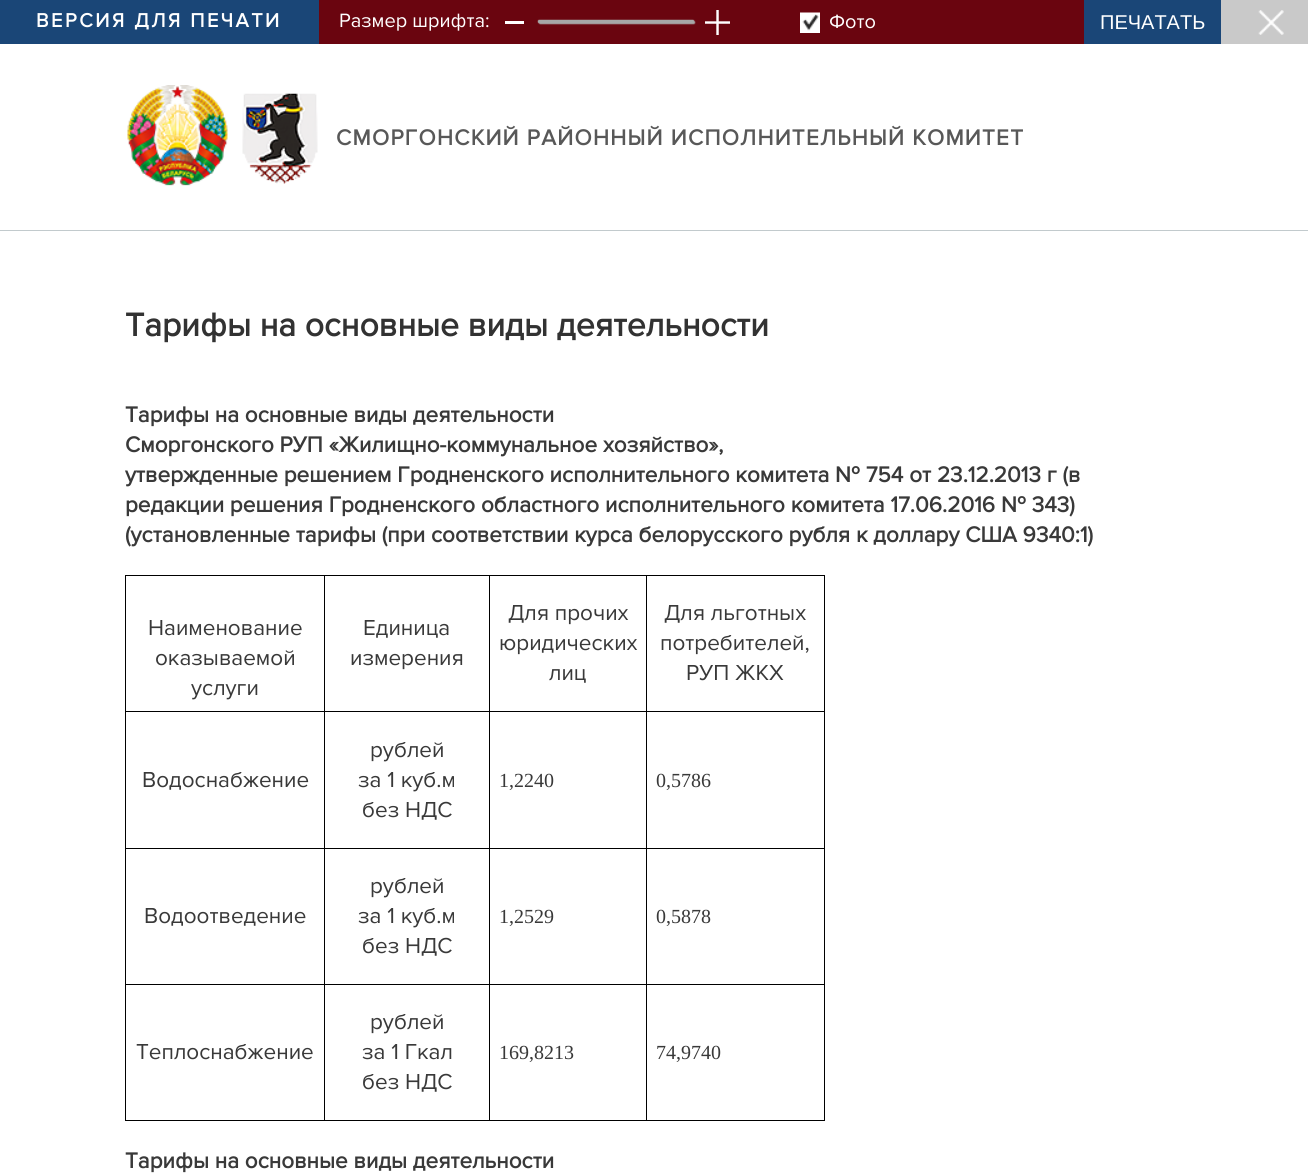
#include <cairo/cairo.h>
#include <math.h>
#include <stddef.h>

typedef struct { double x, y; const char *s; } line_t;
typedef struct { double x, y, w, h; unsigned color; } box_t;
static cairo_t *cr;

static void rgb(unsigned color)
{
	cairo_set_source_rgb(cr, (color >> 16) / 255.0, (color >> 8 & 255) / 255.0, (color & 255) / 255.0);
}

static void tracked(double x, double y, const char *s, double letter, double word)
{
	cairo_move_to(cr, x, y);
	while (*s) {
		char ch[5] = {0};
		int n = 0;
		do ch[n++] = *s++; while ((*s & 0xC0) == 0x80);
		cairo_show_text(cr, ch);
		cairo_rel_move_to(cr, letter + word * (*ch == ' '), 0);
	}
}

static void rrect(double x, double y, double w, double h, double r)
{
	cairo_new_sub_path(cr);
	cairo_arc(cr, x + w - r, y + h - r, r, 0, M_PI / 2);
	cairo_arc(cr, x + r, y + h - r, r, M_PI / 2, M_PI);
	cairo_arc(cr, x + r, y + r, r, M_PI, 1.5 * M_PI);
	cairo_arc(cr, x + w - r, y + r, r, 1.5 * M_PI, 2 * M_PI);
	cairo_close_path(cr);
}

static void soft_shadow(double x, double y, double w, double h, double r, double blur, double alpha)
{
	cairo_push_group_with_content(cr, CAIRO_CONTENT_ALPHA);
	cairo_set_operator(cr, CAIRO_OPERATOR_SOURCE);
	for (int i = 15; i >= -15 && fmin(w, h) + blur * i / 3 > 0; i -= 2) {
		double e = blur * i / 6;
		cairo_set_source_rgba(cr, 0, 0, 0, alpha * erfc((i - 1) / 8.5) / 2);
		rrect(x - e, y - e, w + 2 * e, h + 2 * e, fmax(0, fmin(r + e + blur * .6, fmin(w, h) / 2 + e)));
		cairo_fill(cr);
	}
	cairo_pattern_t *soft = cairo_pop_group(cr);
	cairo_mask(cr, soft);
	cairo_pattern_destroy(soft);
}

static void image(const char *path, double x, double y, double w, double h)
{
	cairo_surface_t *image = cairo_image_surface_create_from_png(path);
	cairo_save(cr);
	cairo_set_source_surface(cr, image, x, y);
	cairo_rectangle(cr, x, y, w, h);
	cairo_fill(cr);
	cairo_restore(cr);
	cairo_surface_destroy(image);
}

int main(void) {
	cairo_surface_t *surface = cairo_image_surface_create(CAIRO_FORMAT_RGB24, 1308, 1175);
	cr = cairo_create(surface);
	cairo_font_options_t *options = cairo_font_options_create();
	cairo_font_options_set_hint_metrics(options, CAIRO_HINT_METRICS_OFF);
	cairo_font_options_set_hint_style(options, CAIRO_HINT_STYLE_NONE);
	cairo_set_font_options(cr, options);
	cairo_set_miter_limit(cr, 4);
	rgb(0xffffff);
	cairo_paint(cr);
	{
		static const box_t items[] = {
			{319, 0, 765, 44, 0x6a050f},
			{0, 0, 319, 44, 0x1a4677},
			{505, 21, 19, 3, 0xffffff},
		};
		for (size_t i = 0; i < sizeof items / sizeof *items; i++) {
			rgb(items[i].color);
			cairo_rectangle(cr, items[i].x, items[i].y, items[i].w, items[i].h);
			cairo_fill(cr);
		}
	}
	rgb(0xa7a7a7);
	soft_shadow(538, 20, 156, 3, 1.5, 0.5, 1);
	soft_shadow(539, 21, 156, 3, 1.5, 0.5, 1);
	rgb(0xa7a7a7);
	rrect(538, 20, 156, 3, 1.5);
	cairo_fill(cr);
	image("img/1.png", 705, 10, 25, 25);
	image("img/2.png", 800, 12, 20, 20);
	cairo_rectangle(cr, 800.5, 13.5, 19, 19);
	rgb(0xffffff);
	cairo_set_line_width(cr, 1);
	cairo_stroke(cr);
	rgb(0x1a4677);
	cairo_rectangle(cr, 1084, 0, 137, 44);
	cairo_fill(cr);
	rgb(0xc9c9c9);
	cairo_rectangle(cr, 1221, 0, 87, 44);
	cairo_fill(cr);
	image("img/3.png", 1258, 10, 26, 25);
	rgb(0xc2cacd);
	cairo_rectangle(cr, 0, 230, 1308, 1);
	cairo_fill(cr);
	image("img/4.png", 127, 85, 101, 101);
	image("img/5.png", 242, 93, 76, 91);
	{
		static const box_t items[] = {
			{125, 575, 700, 1, 0x000000},
			{824, 711, 1, 410, 0x000000},
			{824, 575, 1, 138, 0x000000},
			{646, 1120, 179, 1, 0x000000},
			{646, 984, 1, 137, 0x000000},
			{646, 984, 179, 1, 0x000000},
			{646, 848, 1, 137, 0x000000},
			{646, 848, 179, 1, 0x000000},
			{646, 711, 1, 138, 0x000000},
			{646, 711, 179, 1, 0x000000},
			{646, 575, 1, 138, 0x000000},
			{489, 1120, 159, 1, 0x000000},
			{489, 984, 1, 137, 0x000000},
			{489, 984, 159, 1, 0x000000},
			{489, 848, 1, 137, 0x000000},
			{489, 848, 159, 1, 0x000000},
			{489, 711, 1, 138, 0x000000},
			{489, 711, 159, 1, 0x000000},
			{489, 575, 1, 138, 0x000000},
			{324, 1120, 166, 1, 0x000000},
			{324, 984, 1, 137, 0x000000},
			{324, 984, 166, 1, 0x000000},
			{324, 848, 1, 137, 0x000000},
			{324, 848, 166, 1, 0x000000},
			{324, 711, 1, 138, 0x000000},
			{324, 711, 166, 1, 0x000000},
			{324, 575, 1, 138, 0x000000},
			{125, 1120, 200, 1, 0x000000},
			{125, 984, 1, 137, 0x000000},
			{125, 984, 200, 1, 0x000000},
			{125, 848, 1, 137, 0x000000},
			{125, 848, 200, 1, 0x000000},
			{125, 711, 1, 138, 0x000000},
			{125, 711, 200, 1, 0x000000},
			{125, 575, 1, 138, 0x000000},
		};
		for (size_t i = 0; i < sizeof items / sizeof *items; i++) {
			rgb(items[i].color);
			cairo_rectangle(cr, items[i].x, items[i].y, items[i].w, items[i].h);
			cairo_fill(cr);
		}
	}
	cairo_select_font_face(cr, "Proxima Nova", CAIRO_FONT_SLANT_NORMAL, CAIRO_FONT_WEIGHT_BOLD);
	cairo_set_font_size(cr, 20);
	rgb(0xffffff);
	tracked(36, 27, "ВЕРСИЯ ДЛЯ ПЕЧАТИ", 2.5, 0);
	cairo_select_font_face(cr, "Proxima Nova", CAIRO_FONT_SLANT_NORMAL, CAIRO_FONT_WEIGHT_NORMAL);
	cairo_move_to(cr, 339, 27);
	cairo_show_text(cr, "Размер шрифта:");
	cairo_move_to(cr, 829, 28);
	cairo_show_text(cr, "Фото");
	cairo_select_font_face(cr, "Liberation Sans", CAIRO_FONT_SLANT_NORMAL, CAIRO_FONT_WEIGHT_NORMAL);
	cairo_move_to(cr, 1100, 29);
	cairo_show_text(cr, "ПЕЧАТАТЬ");
	cairo_select_font_face(cr, "Proxima Nova", CAIRO_FONT_SLANT_NORMAL, CAIRO_FONT_WEIGHT_BOLD);
	cairo_set_font_size(cr, 22.5);
	rgb(0x585858);
	tracked(336, 145, "СМОРГОНСКИЙ РАЙОННЫЙ ИСПОЛНИТЕЛЬНЫЙ КОМИТЕТ", 1.25, 0);
	cairo_set_font_size(cr, 33.75);
	rgb(0x323232);
	cairo_move_to(cr, 125, 336);
	cairo_show_text(cr, "Тарифы на основные виды деятельности");
	cairo_set_font_size(cr, 22.5);
	rgb(0x393939);
	{
		static const line_t items[] = {
			{125, 422, "Тарифы на основные виды деятельности"},
			{125, 452, "Сморгонского РУП «Жилищно-коммунальное хозяйство»,"},
			{125, 482, "утвержденные решением Гродненского исполнительного комитета № 754 от 23.12.2013 г (в"},
			{125, 512, "редакции решения Гродненского областного исполнительного комитета 17.06.2016 № 343)"},
			{125, 542, "(установленные тарифы (при соответствии курса белорусского рубля к доллару США 9340:1)"},
		};
		for (size_t i = 0; i < sizeof items / sizeof *items; i++) {
			cairo_move_to(cr, items[i].x, items[i].y);
			cairo_show_text(cr, items[i].s);
		}
	}
	cairo_select_font_face(cr, "Proxima Nova", CAIRO_FONT_SLANT_NORMAL, CAIRO_FONT_WEIGHT_NORMAL);
	{
		static const line_t items[] = {
			{148, 635, "Наименование"},
			{155, 665, "оказываемой"},
			{191, 695, "услуги"},
			{363, 635, "Единица"},
			{350, 665, "измерения"},
			{508, 620, "Для прочих"},
			{499, 650, "юридических"},
			{549, 680, "лиц"},
			{664, 620, "Для льготных"},
			{660, 650, "потребителей,"},
			{686, 680, "РУП ЖКХ"},
			{142, 787, "Водоснабжение"},
			{370, 757, "рублей"},
			{358, 787, "за 1 куб.м"},
			{362, 817, "без НДС"},
		};
		for (size_t i = 0; i < sizeof items / sizeof *items; i++) {
			cairo_move_to(cr, items[i].x, items[i].y);
			cairo_show_text(cr, items[i].s);
		}
	}
	cairo_select_font_face(cr, "Liberation Serif", CAIRO_FONT_SLANT_NORMAL, CAIRO_FONT_WEIGHT_NORMAL);
	cairo_set_font_size(cr, 20);
	cairo_move_to(cr, 499, 787);
	cairo_show_text(cr, "1,2240");
	cairo_move_to(cr, 656, 787);
	cairo_show_text(cr, "0,5786");
	cairo_select_font_face(cr, "Proxima Nova", CAIRO_FONT_SLANT_NORMAL, CAIRO_FONT_WEIGHT_NORMAL);
	cairo_set_font_size(cr, 22.5);
	{
		static const line_t items[] = {
			{144, 923, "Водоотведение"},
			{370, 893, "рублей"},
			{358, 923, "за 1 куб.м"},
			{362, 953, "без НДС"},
		};
		for (size_t i = 0; i < sizeof items / sizeof *items; i++) {
			cairo_move_to(cr, items[i].x, items[i].y);
			cairo_show_text(cr, items[i].s);
		}
	}
	cairo_select_font_face(cr, "Liberation Serif", CAIRO_FONT_SLANT_NORMAL, CAIRO_FONT_WEIGHT_NORMAL);
	cairo_set_font_size(cr, 20);
	cairo_move_to(cr, 499, 923);
	cairo_show_text(cr, "1,2529");
	cairo_move_to(cr, 656, 923);
	cairo_show_text(cr, "0,5878");
	cairo_select_font_face(cr, "Proxima Nova", CAIRO_FONT_SLANT_NORMAL, CAIRO_FONT_WEIGHT_NORMAL);
	cairo_set_font_size(cr, 22.5);
	{
		static const line_t items[] = {
			{136, 1059, "Теплоснабжение"},
			{370, 1029, "рублей"},
			{362, 1059, "за 1 Гкал"},
			{362, 1089, "без НДС"},
		};
		for (size_t i = 0; i < sizeof items / sizeof *items; i++) {
			cairo_move_to(cr, items[i].x, items[i].y);
			cairo_show_text(cr, items[i].s);
		}
	}
	cairo_select_font_face(cr, "Liberation Serif", CAIRO_FONT_SLANT_NORMAL, CAIRO_FONT_WEIGHT_NORMAL);
	cairo_set_font_size(cr, 20);
	cairo_move_to(cr, 499, 1059);
	cairo_show_text(cr, "169,8213");
	cairo_move_to(cr, 656, 1059);
	cairo_show_text(cr, "74,9740");
	cairo_select_font_face(cr, "Proxima Nova", CAIRO_FONT_SLANT_NORMAL, CAIRO_FONT_WEIGHT_BOLD);
	cairo_set_font_size(cr, 22.5);
	cairo_move_to(cr, 125, 1168);
	cairo_show_text(cr, "Тарифы на основные виды деятельности");
	cairo_surface_write_to_png(surface, "page.png");
	cairo_font_options_destroy(options);
	cairo_destroy(cr);
	cairo_surface_destroy(surface);
	return 0;
}
